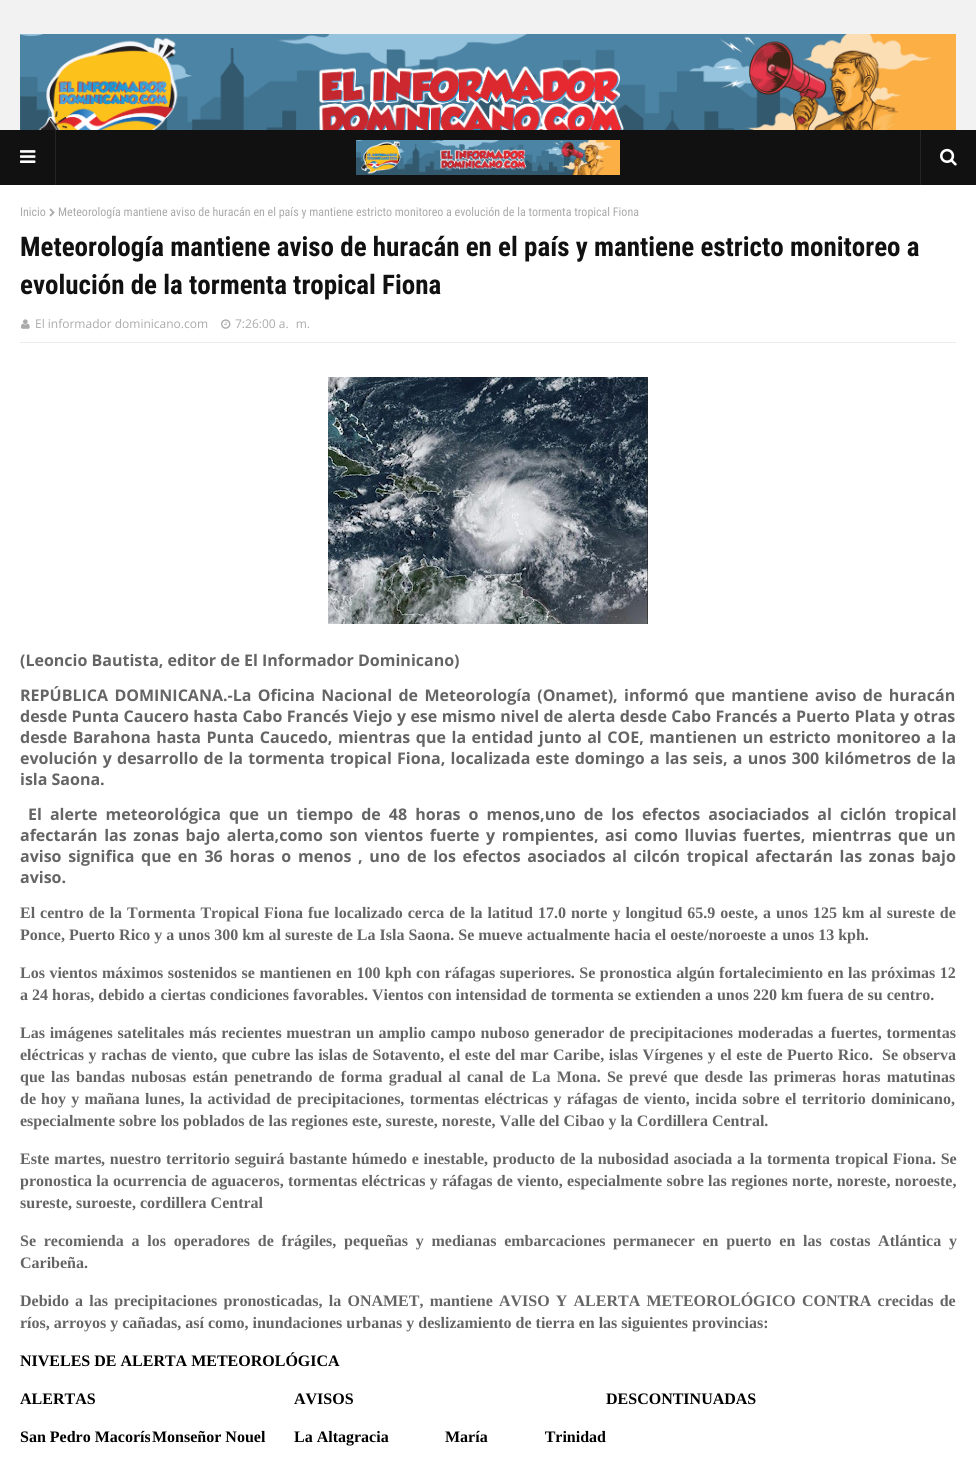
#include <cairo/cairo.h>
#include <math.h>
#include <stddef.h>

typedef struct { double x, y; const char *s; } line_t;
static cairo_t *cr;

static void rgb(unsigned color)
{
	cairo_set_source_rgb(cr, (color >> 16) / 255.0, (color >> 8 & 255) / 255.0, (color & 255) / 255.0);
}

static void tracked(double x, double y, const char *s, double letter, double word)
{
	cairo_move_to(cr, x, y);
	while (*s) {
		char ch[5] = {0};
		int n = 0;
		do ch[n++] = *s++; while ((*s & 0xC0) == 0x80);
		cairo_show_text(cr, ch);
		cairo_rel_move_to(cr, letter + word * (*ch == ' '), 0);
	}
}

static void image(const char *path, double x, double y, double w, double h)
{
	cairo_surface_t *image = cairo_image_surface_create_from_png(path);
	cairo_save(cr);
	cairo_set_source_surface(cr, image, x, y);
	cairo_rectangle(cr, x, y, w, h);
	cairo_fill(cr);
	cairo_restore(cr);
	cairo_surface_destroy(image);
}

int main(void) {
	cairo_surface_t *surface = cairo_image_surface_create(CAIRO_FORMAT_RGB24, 976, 1460);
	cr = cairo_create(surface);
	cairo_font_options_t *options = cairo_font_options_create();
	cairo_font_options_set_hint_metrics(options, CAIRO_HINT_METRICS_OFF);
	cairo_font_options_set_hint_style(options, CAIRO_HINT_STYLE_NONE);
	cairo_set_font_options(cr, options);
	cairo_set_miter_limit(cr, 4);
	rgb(0xffffff);
	cairo_paint(cr);
	rgb(0xf2f2f2);
	cairo_rectangle(cr, 0, 0, 976, 130);
	cairo_fill(cr);
	image("img/1.png", 20, 34, 936, 96);
	rgb(0x111111);
	cairo_rectangle(cr, 0, 130, 976, 55);
	cairo_fill(cr);
	rgb(0x242424);
	cairo_rectangle(cr, 55, 130, 1, 55);
	cairo_fill(cr);
	image("img/2.png", 20, 150, 16, 13);
	image("img/3.png", 356, 140, 264, 35);
	cairo_rectangle(cr, 920, 130, 1, 55);
	cairo_fill(cr);
	image("img/4.png", 940, 148, 17, 18);
	image("img/5.png", 49, 208, 6, 9);
	rgb(0xebebeb);
	cairo_rectangle(cr, 20, 342, 936, 1);
	cairo_fill(cr);
	image("img/6.png", 21, 319, 9, 10);
	image("img/7.png", 221, 319, 10, 10);
	image("img/8.png", 328, 377, 320, 247);
	cairo_select_font_face(cr, "Roboto Condensed", CAIRO_FONT_SLANT_NORMAL, CAIRO_FONT_WEIGHT_NORMAL);
	cairo_set_font_size(cr, 12);
	rgb(0xaaaaaa);
	cairo_move_to(cr, 20, 216);
	cairo_show_text(cr, "Inicio");
	cairo_move_to(cr, 58, 216);
	cairo_show_text(cr, "Meteorología mantiene aviso de huracán en el país y mantiene estricto monitoreo a evolución de la tormenta tropical Fiona");
	cairo_select_font_face(cr, "Roboto Condensed", CAIRO_FONT_SLANT_NORMAL, CAIRO_FONT_WEIGHT_BOLD);
	cairo_set_font_size(cr, 27);
	rgb(0x111111);
	cairo_move_to(cr, 20, 256);
	cairo_show_text(cr, "Meteorología mantiene aviso de huracán en el país y mantiene estricto monitoreo a");
	cairo_move_to(cr, 20, 294);
	cairo_show_text(cr, "evolución de la tormenta tropical Fiona");
	cairo_select_font_face(cr, "Open Sans", CAIRO_FONT_SLANT_NORMAL, CAIRO_FONT_WEIGHT_NORMAL);
	cairo_set_font_size(cr, 12);
	rgb(0xaaaaaa);
	cairo_move_to(cr, 35, 328);
	cairo_show_text(cr, "El informador dominicano.com");
	cairo_move_to(cr, 235, 328);
	cairo_show_text(cr, "7:26:00 a. m.");
	cairo_select_font_face(cr, "Open Sans", CAIRO_FONT_SLANT_NORMAL, CAIRO_FONT_WEIGHT_BOLD);
	cairo_set_font_size(cr, 16);
	rgb(0x656565);
	cairo_move_to(cr, 20, 666);
	cairo_show_text(cr, "(Leoncio Bautista, editor de El Informador Dominicano)");
	tracked(20, 701, "REPÚBLICA DOMINICANA.-La Oficina Nacional de Meteorología (Onamet), informó que mantiene aviso de huracán", 0, 2.25);
	tracked(20, 722, "desde Punta Caucero hasta Cabo Francés Viejo y ese mismo nivel de alerta desde Cabo Francés a Puerto Plata y otras", 0, 0.25);
	tracked(20, 743, "desde Barahona hasta Punta Caucedo, mientras que la entidad junto al COE, mantienen un estricto monitoreo a la", 0, 1.4);
	tracked(20, 764, "evolución y desarrollo de la tormenta tropical Fiona, localizada este domingo a las seis, a unos 300 kilómetros de la", 0, 1.1);
	cairo_move_to(cr, 20, 785);
	cairo_show_text(cr, "isla Saona.");
	tracked(28, 820, "El alerte meteorológica que un tiempo de 48 horas o menos,uno de los efectos asociaciados al ciclón tropical", 0, 3.9);
	tracked(20, 841, "afectarán las zonas bajo alerta,como son vientos fuerte y rompientes, asi como lluvias fuertes, mientrras que un", 0, 2.4);
	tracked(20, 862, "aviso significa que en 36 horas o menos , uno de los efectos asociados al cilcón tropical afectarán las zonas bajo", 0, 2.5);
	cairo_move_to(cr, 20, 883);
	cairo_show_text(cr, "aviso.");
	cairo_select_font_face(cr, "Liberation Serif", CAIRO_FONT_SLANT_NORMAL, CAIRO_FONT_WEIGHT_BOLD);
	tracked(20, 918, "El centro de la", 0, 1);
	tracked(127, 918, "Tormenta Tropical", 0, 1);
	cairo_move_to(cr, 264, 918);
	cairo_show_text(cr, "Fiona");
	tracked(308, 918, "fue localizado cerca de la latitud 17.0 norte y longitud 65.9 oeste, a unos 125 km al sureste de", 0, 1);
	cairo_move_to(cr, 20, 940);
	cairo_show_text(cr, "Ponce, Puerto Rico y a unos 300 km al sureste de La Isla Saona. Se mueve actualmente hacia el oeste/noroeste a unos 13 kph.");
	tracked(20, 978, "Los vientos máximos sostenidos se mantienen en 100 kph con ráfagas superiores. Se pronostica algún fortalecimiento en las próximas 12", 0, 0.5);
	cairo_move_to(cr, 20, 1000);
	cairo_show_text(cr, "a 24 horas, debido a ciertas condiciones favorables. Vientos con intensidad de tormenta se extienden a unos 220 km fuera de su centro.");
	tracked(20, 1038, "Las imágenes satelitales más recientes muestran un amplio campo nuboso generador de precipitaciones moderadas a fuertes, tormentas", 0, 0.75);
	tracked(20, 1060, "eléctricas y rachas de viento, que cubre las islas de Sotavento, el este del mar Caribe, islas Vírgenes y el este de Puerto Rico.  Se observa", 0, 0.55);
	tracked(20, 1082, "que las bandas nubosas están penetrando de forma gradual al canal de La Mona. Se prevé que desde las primeras horas matutinas", 0, 2.2);
	cairo_move_to(cr, 20, 1104);
	cairo_show_text(cr, "de");
	tracked(41, 1104, "hoy y mañana lunes, la actividad de precipitaciones, tormentas eléctricas y ráfagas de viento, incida sobre el territorio dominicano,", 0, 1.3);
	cairo_move_to(cr, 20, 1126);
	cairo_show_text(cr, "especialmente sobre los poblados de las regiones este, sureste, noreste, Valle del Cibao y la Cordillera Central.");
	tracked(20, 1164, "Este martes", 0, 1);
	tracked(101, 1164, ", nuestro territorio seguirá bastante húmedo e inestable, producto de la nubosidad asociada a la tormenta tropical Fiona. Se", 0, 0.75);
	tracked(20, 1186, "pronostica la ocurrencia de aguaceros, tormentas eléctricas y ráfagas de viento, especialmente sobre las regiones norte, noreste, noroeste,", 0, 0.25);
	cairo_move_to(cr, 20, 1208);
	cairo_show_text(cr, "sureste, suroeste, cordillera Central");
	tracked(20, 1246, "Se recomienda a los operadores de frágiles, pequeñas y medianas embarcaciones", 0, 3.75);
	tracked(613, 1246, "permanecer en puerto en las costas Atlántica y", 0, 3.75);
	cairo_move_to(cr, 20, 1268);
	cairo_show_text(cr, "Caribeña.");
	tracked(20, 1306, "Debido a las precipitaciones pronosticadas, la ONAMET, mantiene AVISO Y ALERTA METEOROLÓGICO CONTRA crecidas de", 0, 2.2);
	cairo_move_to(cr, 20, 1328);
	cairo_show_text(cr, "ríos, arroyos y cañadas, así como, inundaciones urbanas y deslizamiento de tierra en las siguientes provincias:");
	rgb(0x000000);
	{
		static const line_t items[] = {
			{20, 1366, "NIVELES DE ALERTA METEOROLÓGICA"},
			{20, 1404, "ALERTAS"},
			{294, 1404, "AVISOS"},
			{606, 1404, "DESCONTINUADAS"},
			{20, 1442, "San Pedro Macorís"},
			{152, 1442, "Monseñor Nouel"},
			{294, 1442, "La Altagracia"},
		};
		for (size_t i = 0; i < sizeof items / sizeof *items; i++) {
			cairo_move_to(cr, items[i].x, items[i].y);
			cairo_show_text(cr, items[i].s);
		}
	}
	tracked(445, 1442, "María Trinidad", 0, 53);
	cairo_surface_write_to_png(surface, "page.png");
	cairo_font_options_destroy(options);
	cairo_destroy(cr);
	cairo_surface_destroy(surface);
	return 0;
}
